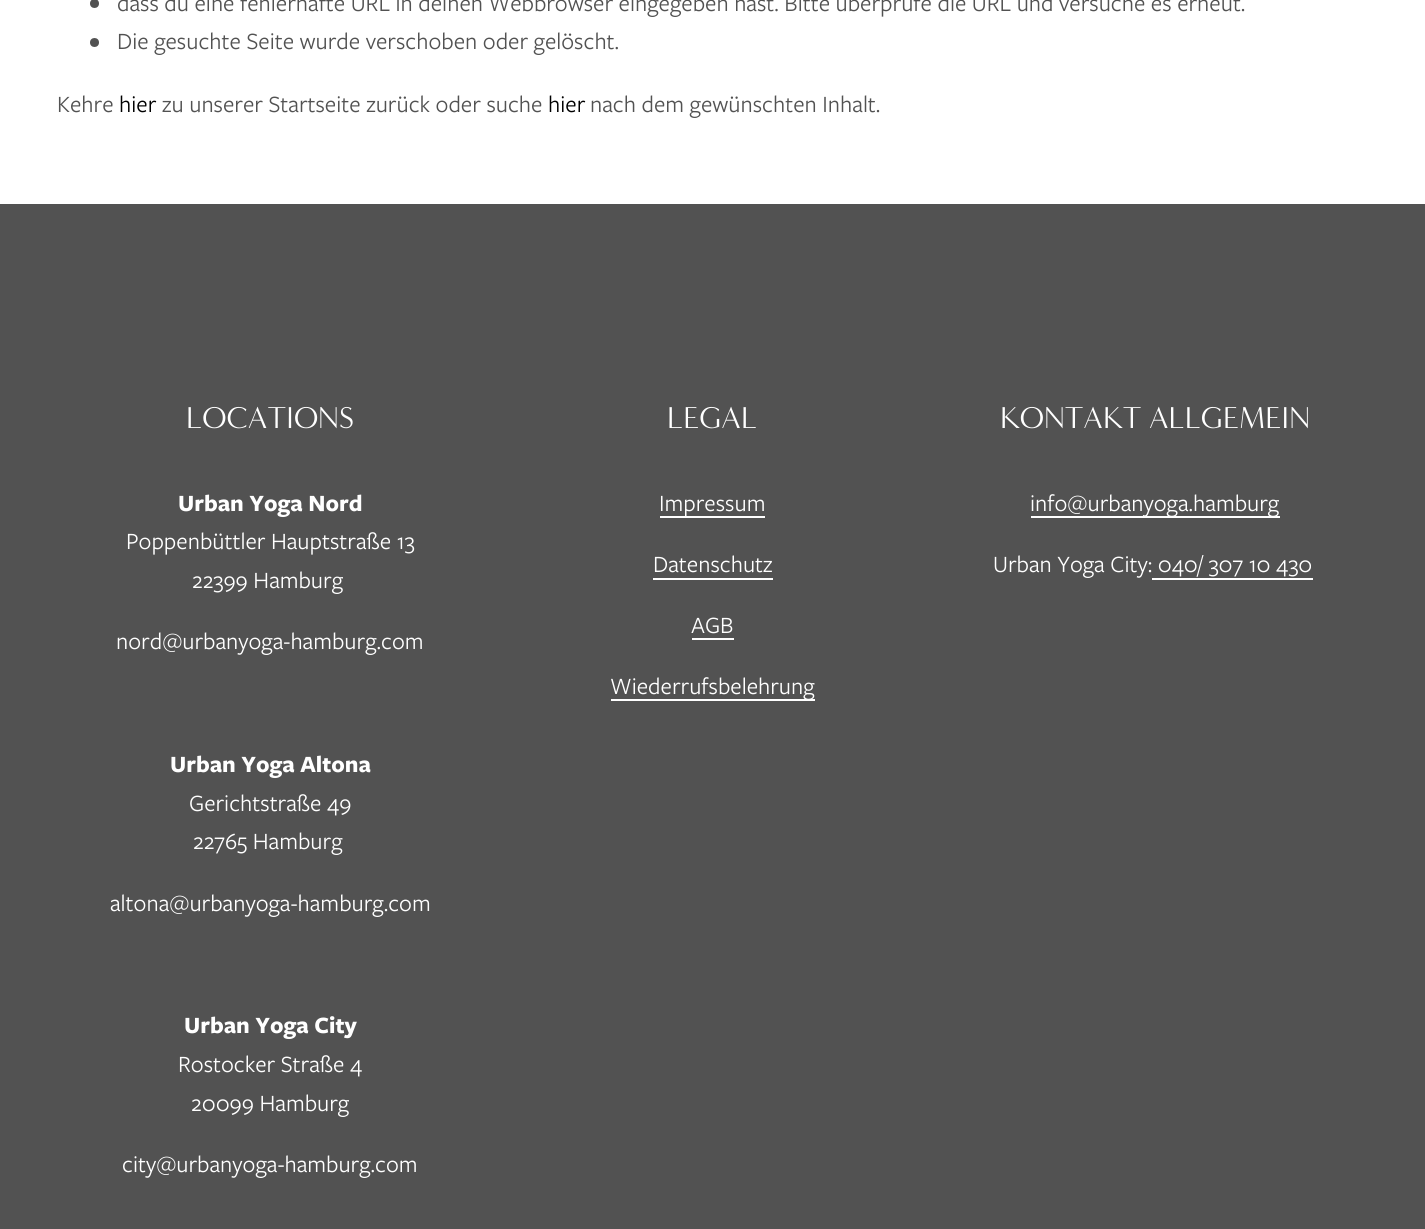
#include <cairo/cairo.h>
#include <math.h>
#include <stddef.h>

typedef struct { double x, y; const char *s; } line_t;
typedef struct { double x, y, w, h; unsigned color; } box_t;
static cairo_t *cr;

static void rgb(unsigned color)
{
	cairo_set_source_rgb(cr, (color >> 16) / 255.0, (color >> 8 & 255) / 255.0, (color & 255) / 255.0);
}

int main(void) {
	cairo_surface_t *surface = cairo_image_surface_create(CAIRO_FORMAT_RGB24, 1425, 1229);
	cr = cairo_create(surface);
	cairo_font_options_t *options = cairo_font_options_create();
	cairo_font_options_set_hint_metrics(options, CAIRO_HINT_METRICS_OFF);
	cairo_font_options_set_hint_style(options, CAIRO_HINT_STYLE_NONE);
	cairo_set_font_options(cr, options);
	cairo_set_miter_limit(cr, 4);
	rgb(0xffffff);
	cairo_paint(cr);
	rgb(0x525252);
	cairo_arc(cr, 94.5, 3.5, 4.5, 0, 2 * M_PI);
	cairo_fill(cr);
	cairo_arc(cr, 94.5, 42.5, 4.5, 0, 2 * M_PI);
	cairo_fill(cr);
	{
		static const box_t items[] = {
			{0, 204, 1425, 1025, 0x525252},
			{660, 516, 105, 2, 0xffffff},
			{653, 578, 120, 2, 0xffffff},
			{692, 638, 42, 2, 0xffffff},
			{611, 699, 204, 2, 0xffffff},
			{1031, 516, 249, 2, 0xffffff},
			{1152, 578, 161, 2, 0xffffff},
		};
		for (size_t i = 0; i < sizeof items / sizeof *items; i++) {
			rgb(items[i].color);
			cairo_rectangle(cr, items[i].x, items[i].y, items[i].w, items[i].h);
			cairo_fill(cr);
		}
	}
	cairo_select_font_face(cr, "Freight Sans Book", CAIRO_FONT_SLANT_NORMAL, CAIRO_FONT_WEIGHT_NORMAL);
	cairo_set_font_size(cr, 24.2);
	rgb(0x525252);
	{
		static const line_t items[] = {
			{117, 11, "dass du eine fehlerhafte URL in deinen Webbrowser eingegeben hast. Bitte überprüfe die URL und versuche es erneut."},
			{117, 49, "Die gesuchte Seite wurde verschoben oder gelöscht."},
			{57, 112, "Kehre"},
		};
		for (size_t i = 0; i < sizeof items / sizeof *items; i++) {
			cairo_move_to(cr, items[i].x, items[i].y);
			cairo_show_text(cr, items[i].s);
		}
	}
	rgb(0x000000);
	cairo_move_to(cr, 119, 112);
	cairo_show_text(cr, "hier");
	rgb(0x525252);
	cairo_move_to(cr, 162, 112);
	cairo_show_text(cr, "zu unserer Startseite zurück oder suche");
	rgb(0x000000);
	cairo_move_to(cr, 548, 112);
	cairo_show_text(cr, "hier");
	rgb(0x525252);
	cairo_move_to(cr, 590, 112);
	cairo_show_text(cr, "nach dem gewünschten Inhalt.");
	cairo_select_font_face(cr, "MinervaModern", CAIRO_FONT_SLANT_NORMAL, CAIRO_FONT_WEIGHT_NORMAL);
	cairo_set_font_size(cr, 31);
	rgb(0xffffff);
	cairo_move_to(cr, 186, 428);
	cairo_show_text(cr, "LOCATIONS");
	cairo_select_font_face(cr, "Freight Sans", CAIRO_FONT_SLANT_NORMAL, CAIRO_FONT_WEIGHT_BOLD);
	cairo_set_font_size(cr, 24.2);
	cairo_move_to(cr, 178, 511);
	cairo_show_text(cr, "Urban Yoga Nord");
	cairo_select_font_face(cr, "Freight Sans Book", CAIRO_FONT_SLANT_NORMAL, CAIRO_FONT_WEIGHT_NORMAL);
	{
		static const line_t items[] = {
			{126, 549, "Poppenbüttler Hauptstraße 13"},
			{192, 588, "22399 Hamburg"},
			{116, 649, "nord@urbanyoga-hamburg.com"},
		};
		for (size_t i = 0; i < sizeof items / sizeof *items; i++) {
			cairo_move_to(cr, items[i].x, items[i].y);
			cairo_show_text(cr, items[i].s);
		}
	}
	cairo_select_font_face(cr, "Freight Sans", CAIRO_FONT_SLANT_NORMAL, CAIRO_FONT_WEIGHT_BOLD);
	cairo_move_to(cr, 170, 772);
	cairo_show_text(cr, "Urban Yoga Altona");
	cairo_select_font_face(cr, "Freight Sans Book", CAIRO_FONT_SLANT_NORMAL, CAIRO_FONT_WEIGHT_NORMAL);
	{
		static const line_t items[] = {
			{189, 811, "Gerichtstraße 49"},
			{193, 849, "22765 Hamburg"},
			{110, 911, "altona@urbanyoga-hamburg.com"},
		};
		for (size_t i = 0; i < sizeof items / sizeof *items; i++) {
			cairo_move_to(cr, items[i].x, items[i].y);
			cairo_show_text(cr, items[i].s);
		}
	}
	cairo_select_font_face(cr, "Freight Sans", CAIRO_FONT_SLANT_NORMAL, CAIRO_FONT_WEIGHT_BOLD);
	cairo_move_to(cr, 184, 1033);
	cairo_show_text(cr, "Urban Yoga City");
	cairo_select_font_face(cr, "Freight Sans Book", CAIRO_FONT_SLANT_NORMAL, CAIRO_FONT_WEIGHT_NORMAL);
	{
		static const line_t items[] = {
			{178, 1072, "Rostocker Straße 4"},
			{191, 1111, "20099 Hamburg"},
			{122, 1172, "city@urbanyoga-hamburg.com"},
		};
		for (size_t i = 0; i < sizeof items / sizeof *items; i++) {
			cairo_move_to(cr, items[i].x, items[i].y);
			cairo_show_text(cr, items[i].s);
		}
	}
	cairo_select_font_face(cr, "MinervaModern", CAIRO_FONT_SLANT_NORMAL, CAIRO_FONT_WEIGHT_NORMAL);
	cairo_set_font_size(cr, 31);
	cairo_move_to(cr, 667, 428);
	cairo_show_text(cr, "LEGAL");
	cairo_select_font_face(cr, "Freight Sans Book", CAIRO_FONT_SLANT_NORMAL, CAIRO_FONT_WEIGHT_NORMAL);
	cairo_set_font_size(cr, 24.2);
	{
		static const line_t items[] = {
			{659, 511, "Impressum"},
			{653, 572, "Datenschutz"},
			{691, 633, "AGB"},
			{610, 694, "Wiederrufsbelehrung"},
		};
		for (size_t i = 0; i < sizeof items / sizeof *items; i++) {
			cairo_move_to(cr, items[i].x, items[i].y);
			cairo_show_text(cr, items[i].s);
		}
	}
	cairo_select_font_face(cr, "MinervaModern", CAIRO_FONT_SLANT_NORMAL, CAIRO_FONT_WEIGHT_NORMAL);
	cairo_set_font_size(cr, 31);
	cairo_move_to(cr, 1000, 428);
	cairo_show_text(cr, "KONTAKT ALLGEMEIN");
	cairo_select_font_face(cr, "Freight Sans Book", CAIRO_FONT_SLANT_NORMAL, CAIRO_FONT_WEIGHT_NORMAL);
	cairo_set_font_size(cr, 24.2);
	cairo_move_to(cr, 1030, 511);
	cairo_show_text(cr, "info@urbanyoga.hamburg");
	cairo_move_to(cr, 993, 572);
	cairo_show_text(cr, "Urban Yoga City: 040/ 307 10 430");
	cairo_surface_write_to_png(surface, "page.png");
	cairo_font_options_destroy(options);
	cairo_destroy(cr);
	cairo_surface_destroy(surface);
	return 0;
}
